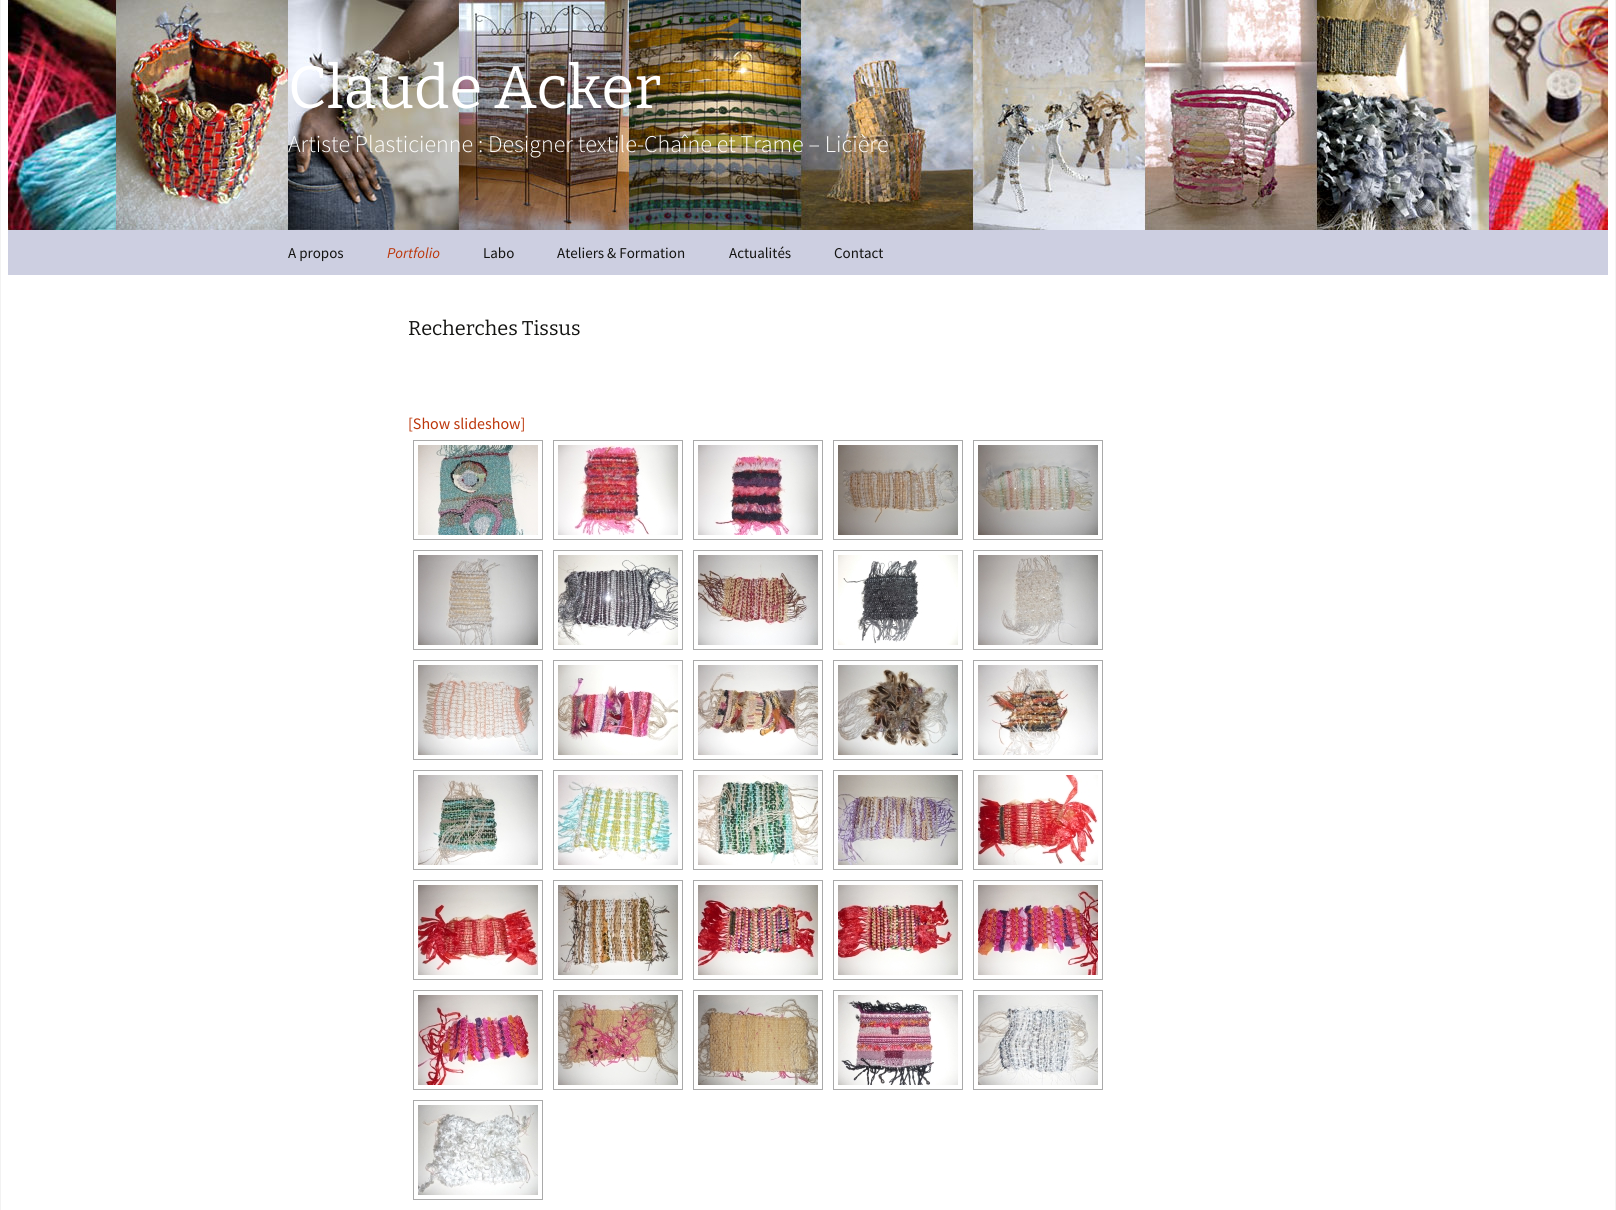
#include <cairo/cairo.h>
#include <math.h>
#include <stddef.h>

typedef struct { double x, y; const char *s; } line_t;
static cairo_t *cr;

static void rgb(unsigned color)
{
	cairo_set_source_rgb(cr, (color >> 16) / 255.0, (color >> 8 & 255) / 255.0, (color & 255) / 255.0);
}

static void image(const char *path, double x, double y, double w, double h)
{
	cairo_surface_t *image = cairo_image_surface_create_from_png(path);
	cairo_save(cr);
	cairo_set_source_surface(cr, image, x, y);
	cairo_rectangle(cr, x, y, w, h);
	cairo_fill(cr);
	cairo_restore(cr);
	cairo_surface_destroy(image);
}

int main(void) {
	cairo_surface_t *surface = cairo_image_surface_create(CAIRO_FORMAT_RGB24, 1616, 1210);
	cr = cairo_create(surface);
	cairo_font_options_t *options = cairo_font_options_create();
	cairo_font_options_set_hint_metrics(options, CAIRO_HINT_METRICS_OFF);
	cairo_font_options_set_hint_style(options, CAIRO_HINT_STYLE_NONE);
	cairo_set_font_options(cr, options);
	cairo_set_miter_limit(cr, 4);
	rgb(0xffffff);
	cairo_paint(cr);
	rgb(0xf2f2f2);
	cairo_rectangle(cr, 1615, 0, 1, 1210);
	cairo_fill(cr);
	cairo_rectangle(cr, 0, 0, 1, 1210);
	cairo_fill(cr);
	image("img/1.png", 8, 0, 1600, 230);
	rgb(0xcdcfe1);
	cairo_rectangle(cr, 8, 230, 1600, 45);
	cairo_fill(cr);
	cairo_rectangle(cr, 413.5, 440.5, 129, 99);
	rgb(0xa9a9a9);
	cairo_set_line_width(cr, 1);
	cairo_stroke(cr);
	image("img/2.png", 418, 445, 120, 90);
	cairo_rectangle(cr, 553.5, 440.5, 129, 99);
	cairo_stroke(cr);
	image("img/3.png", 558, 445, 120, 90);
	cairo_rectangle(cr, 693.5, 440.5, 129, 99);
	cairo_stroke(cr);
	image("img/4.png", 698, 445, 120, 90);
	cairo_rectangle(cr, 833.5, 440.5, 129, 99);
	cairo_stroke(cr);
	image("img/5.png", 838, 445, 120, 90);
	cairo_rectangle(cr, 973.5, 440.5, 129, 99);
	cairo_stroke(cr);
	image("img/6.png", 978, 445, 120, 90);
	cairo_rectangle(cr, 413.5, 550.5, 129, 99);
	cairo_stroke(cr);
	image("img/7.png", 418, 555, 120, 90);
	cairo_rectangle(cr, 553.5, 550.5, 129, 99);
	cairo_stroke(cr);
	image("img/8.png", 558, 555, 120, 90);
	cairo_rectangle(cr, 693.5, 550.5, 129, 99);
	cairo_stroke(cr);
	image("img/9.png", 698, 555, 120, 90);
	cairo_rectangle(cr, 833.5, 550.5, 129, 99);
	cairo_stroke(cr);
	image("img/10.png", 838, 555, 120, 90);
	cairo_rectangle(cr, 973.5, 550.5, 129, 99);
	cairo_stroke(cr);
	image("img/11.png", 978, 555, 120, 90);
	cairo_rectangle(cr, 413.5, 660.5, 129, 99);
	cairo_stroke(cr);
	image("img/12.png", 418, 665, 120, 90);
	cairo_rectangle(cr, 553.5, 660.5, 129, 99);
	cairo_stroke(cr);
	image("img/13.png", 558, 665, 120, 90);
	cairo_rectangle(cr, 693.5, 660.5, 129, 99);
	cairo_stroke(cr);
	image("img/14.png", 698, 665, 120, 90);
	cairo_rectangle(cr, 833.5, 660.5, 129, 99);
	cairo_stroke(cr);
	image("img/15.png", 838, 665, 120, 90);
	cairo_rectangle(cr, 973.5, 660.5, 129, 99);
	cairo_stroke(cr);
	image("img/16.png", 978, 665, 120, 90);
	cairo_rectangle(cr, 413.5, 770.5, 129, 99);
	cairo_stroke(cr);
	image("img/17.png", 418, 775, 120, 90);
	cairo_rectangle(cr, 553.5, 770.5, 129, 99);
	cairo_stroke(cr);
	image("img/18.png", 558, 775, 120, 90);
	cairo_rectangle(cr, 693.5, 770.5, 129, 99);
	cairo_stroke(cr);
	image("img/19.png", 698, 775, 120, 90);
	cairo_rectangle(cr, 833.5, 770.5, 129, 99);
	cairo_stroke(cr);
	image("img/20.png", 838, 775, 120, 90);
	cairo_rectangle(cr, 973.5, 770.5, 129, 99);
	cairo_stroke(cr);
	image("img/21.png", 978, 775, 120, 90);
	cairo_rectangle(cr, 413.5, 880.5, 129, 99);
	cairo_stroke(cr);
	image("img/22.png", 418, 885, 120, 90);
	cairo_rectangle(cr, 553.5, 880.5, 129, 99);
	cairo_stroke(cr);
	image("img/23.png", 558, 885, 120, 90);
	cairo_rectangle(cr, 693.5, 880.5, 129, 99);
	cairo_stroke(cr);
	image("img/24.png", 698, 885, 120, 90);
	cairo_rectangle(cr, 833.5, 880.5, 129, 99);
	cairo_stroke(cr);
	image("img/25.png", 838, 885, 120, 90);
	cairo_rectangle(cr, 973.5, 880.5, 129, 99);
	cairo_stroke(cr);
	image("img/26.png", 978, 885, 120, 90);
	cairo_rectangle(cr, 413.5, 990.5, 129, 99);
	cairo_stroke(cr);
	image("img/27.png", 418, 995, 120, 90);
	cairo_rectangle(cr, 553.5, 990.5, 129, 99);
	cairo_stroke(cr);
	image("img/28.png", 558, 995, 120, 90);
	cairo_rectangle(cr, 693.5, 990.5, 129, 99);
	cairo_stroke(cr);
	image("img/29.png", 698, 995, 120, 90);
	cairo_rectangle(cr, 833.5, 990.5, 129, 99);
	cairo_stroke(cr);
	image("img/30.png", 838, 995, 120, 90);
	cairo_rectangle(cr, 973.5, 990.5, 129, 99);
	cairo_stroke(cr);
	image("img/31.png", 978, 995, 120, 90);
	cairo_rectangle(cr, 413.5, 1100.5, 129, 99);
	cairo_stroke(cr);
	image("img/32.png", 418, 1105, 120, 90);
	cairo_select_font_face(cr, "Bitter Thin", CAIRO_FONT_SLANT_NORMAL, CAIRO_FONT_WEIGHT_NORMAL);
	cairo_set_font_size(cr, 60);
	rgb(0xffffff);
	cairo_move_to(cr, 288, 108);
	cairo_show_text(cr, "Claude Acker");
	cairo_select_font_face(cr, "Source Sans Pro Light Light", CAIRO_FONT_SLANT_NORMAL, CAIRO_FONT_WEIGHT_NORMAL);
	cairo_set_font_size(cr, 24);
	cairo_move_to(cr, 288, 152);
	cairo_show_text(cr, "Artiste Plasticienne : Designer textile-Chaîne et Trame – Licière");
	cairo_select_font_face(cr, "Source Sans Pro", CAIRO_FONT_SLANT_NORMAL, CAIRO_FONT_WEIGHT_NORMAL);
	cairo_set_font_size(cr, 15);
	rgb(0x141412);
	cairo_move_to(cr, 288, 258);
	cairo_show_text(cr, "A propos");
	cairo_select_font_face(cr, "Source Sans Pro", CAIRO_FONT_SLANT_ITALIC, CAIRO_FONT_WEIGHT_NORMAL);
	rgb(0xbc360a);
	cairo_move_to(cr, 387, 258);
	cairo_show_text(cr, "Portfolio");
	cairo_select_font_face(cr, "Source Sans Pro", CAIRO_FONT_SLANT_NORMAL, CAIRO_FONT_WEIGHT_NORMAL);
	rgb(0x141412);
	{
		static const line_t items[] = {
			{483, 258, "Labo"},
			{557, 258, "Ateliers & Formation"},
			{729, 258, "Actualités"},
			{834, 258, "Contact"},
		};
		for (size_t i = 0; i < sizeof items / sizeof *items; i++) {
			cairo_move_to(cr, items[i].x, items[i].y);
			cairo_show_text(cr, items[i].s);
		}
	}
	cairo_select_font_face(cr, "Bitter Thin", CAIRO_FONT_SLANT_NORMAL, CAIRO_FONT_WEIGHT_NORMAL);
	cairo_set_font_size(cr, 20);
	cairo_move_to(cr, 408, 335);
	cairo_show_text(cr, "Recherches Tissus");
	cairo_select_font_face(cr, "Source Sans Pro", CAIRO_FONT_SLANT_NORMAL, CAIRO_FONT_WEIGHT_NORMAL);
	cairo_set_font_size(cr, 16);
	rgb(0xbc360a);
	cairo_move_to(cr, 408, 429);
	cairo_show_text(cr, "[Show slideshow]");
	cairo_surface_write_to_png(surface, "page.png");
	cairo_font_options_destroy(options);
	cairo_destroy(cr);
	cairo_surface_destroy(surface);
	return 0;
}
